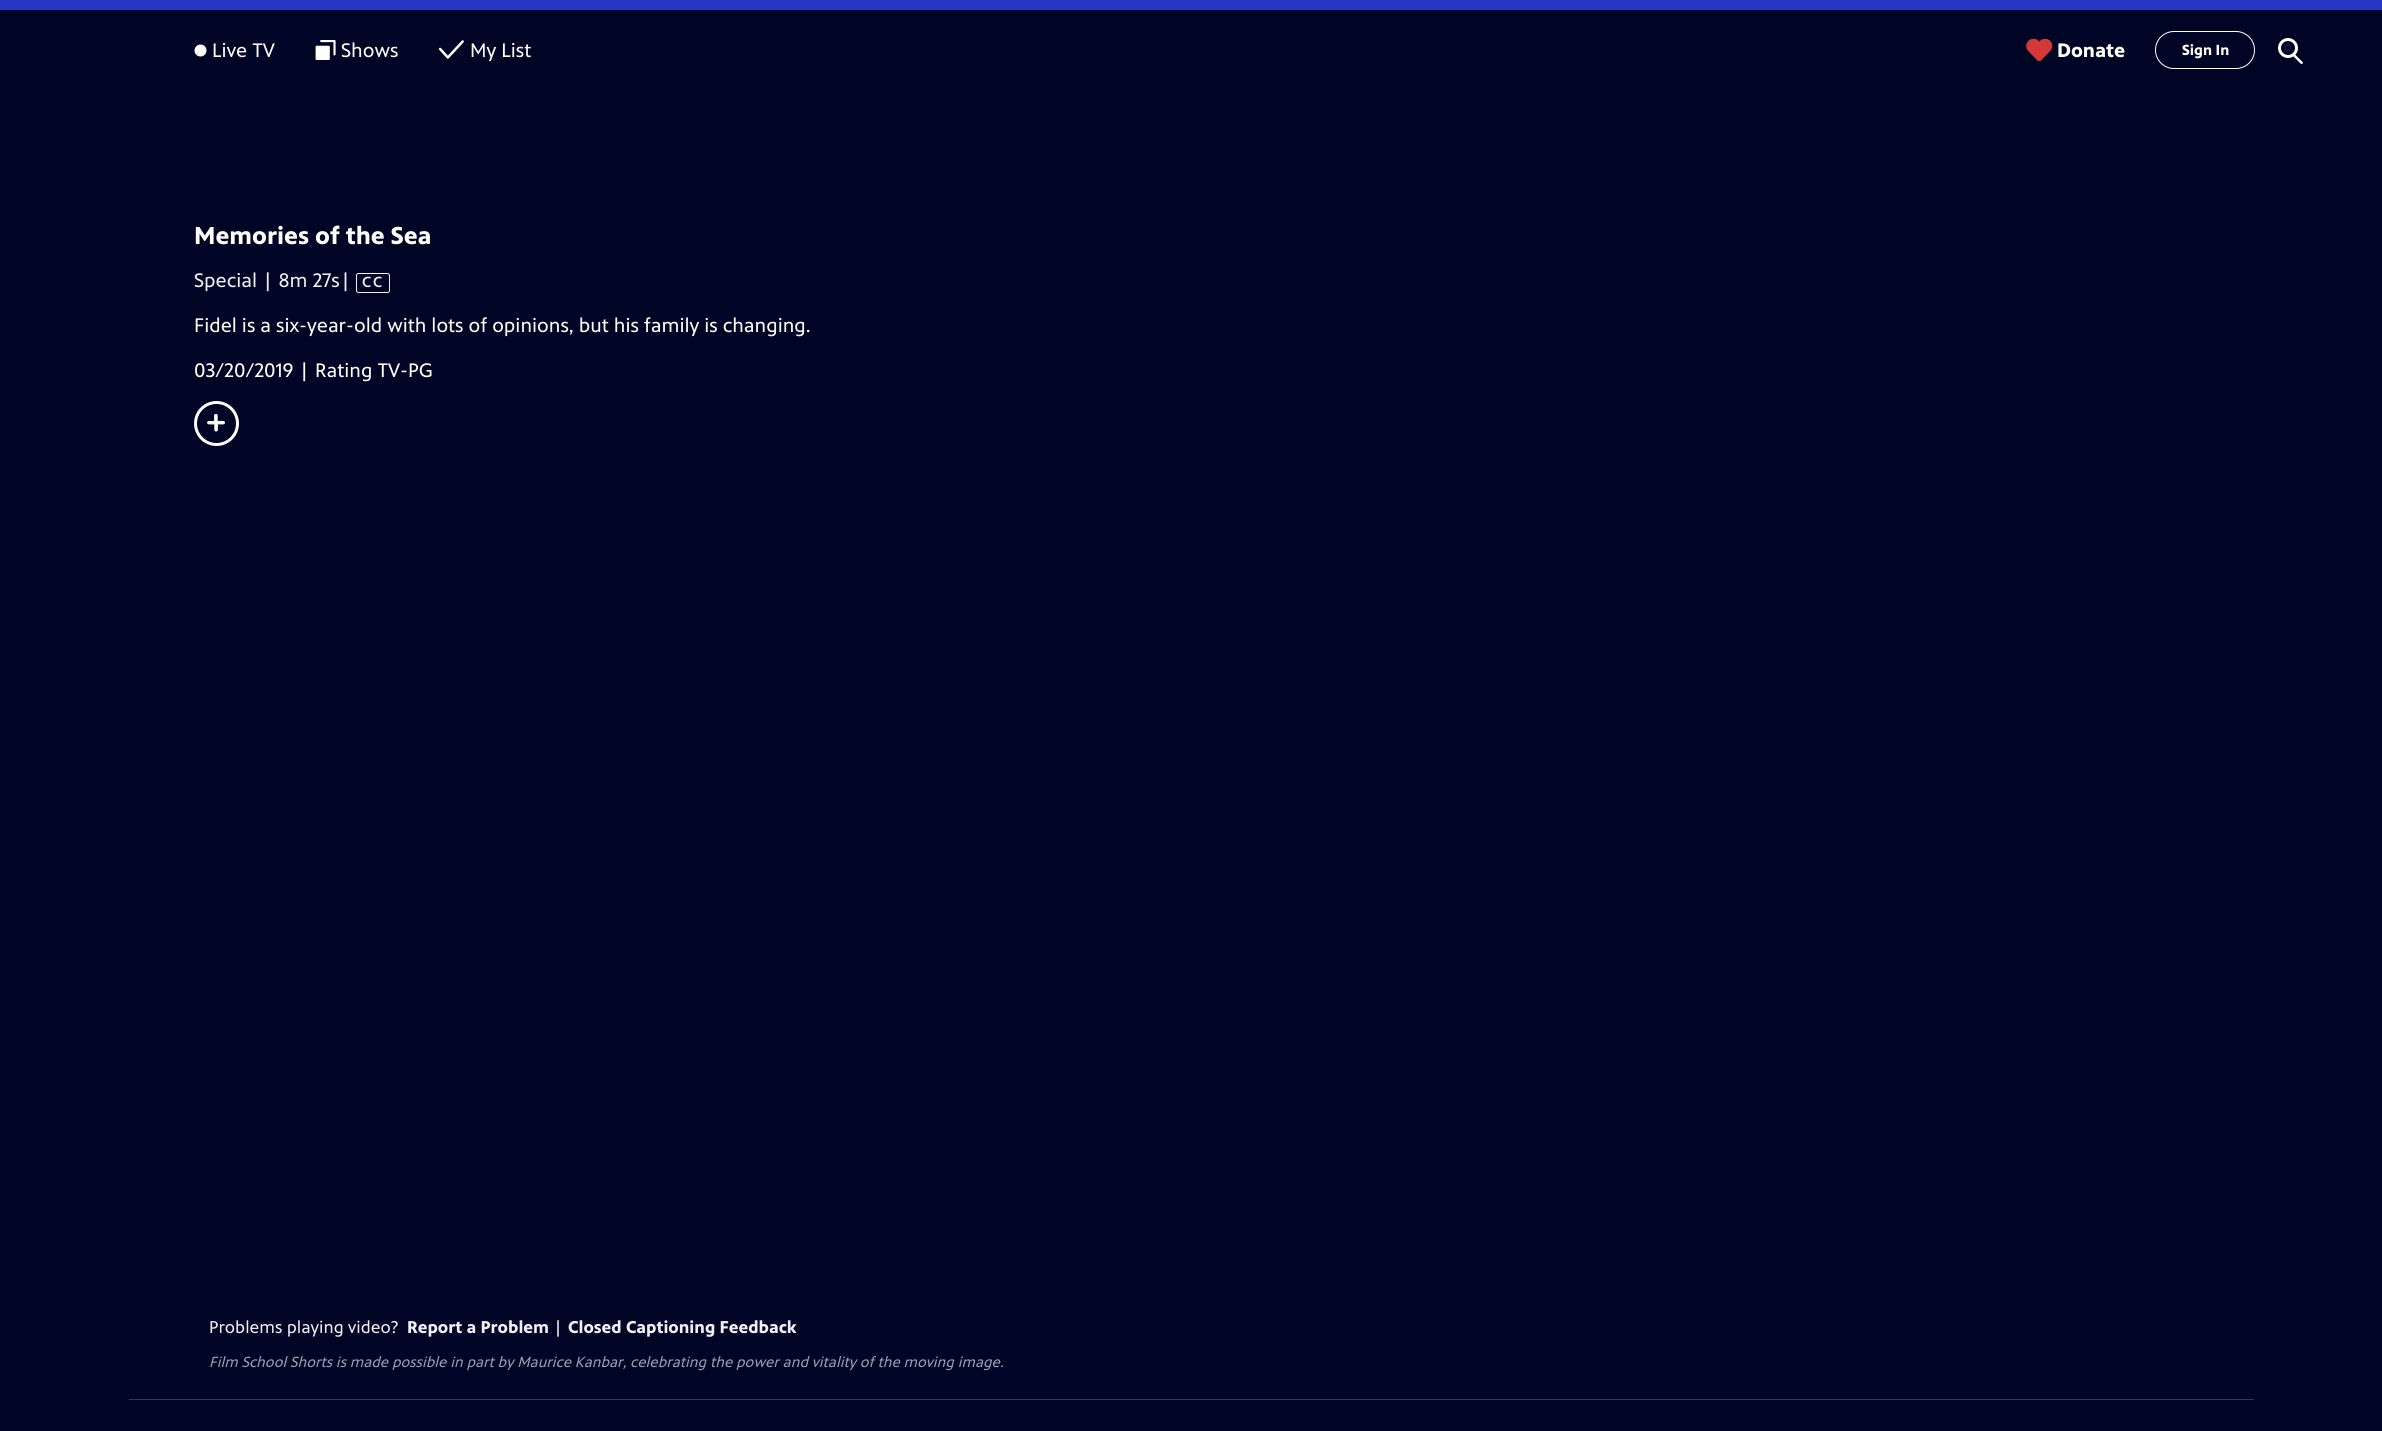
#include <cairo/cairo.h>
#include <math.h>
#include <stddef.h>

typedef struct { double x, y; const char *s; } line_t;
static cairo_t *cr;

static void rgb(unsigned color)
{
	cairo_set_source_rgb(cr, (color >> 16) / 255.0, (color >> 8 & 255) / 255.0, (color & 255) / 255.0);
}

static void tracked(double x, double y, const char *s, double letter, double word)
{
	cairo_move_to(cr, x, y);
	while (*s) {
		char ch[5] = {0};
		int n = 0;
		do ch[n++] = *s++; while ((*s & 0xC0) == 0x80);
		cairo_show_text(cr, ch);
		cairo_rel_move_to(cr, letter + word * (*ch == ' '), 0);
	}
}

static void rrect(double x, double y, double w, double h, double r)
{
	cairo_new_sub_path(cr);
	cairo_arc(cr, x + w - r, y + h - r, r, 0, M_PI / 2);
	cairo_arc(cr, x + r, y + h - r, r, M_PI / 2, M_PI);
	cairo_arc(cr, x + r, y + r, r, M_PI, 1.5 * M_PI);
	cairo_arc(cr, x + w - r, y + r, r, 1.5 * M_PI, 2 * M_PI);
	cairo_close_path(cr);
}

static void image(const char *path, double x, double y, double w, double h)
{
	cairo_surface_t *image = cairo_image_surface_create_from_png(path);
	cairo_save(cr);
	cairo_set_source_surface(cr, image, x, y);
	cairo_rectangle(cr, x, y, w, h);
	cairo_fill(cr);
	cairo_restore(cr);
	cairo_surface_destroy(image);
}

int main(void) {
	cairo_surface_t *surface = cairo_image_surface_create(CAIRO_FORMAT_RGB24, 2382, 1431);
	cr = cairo_create(surface);
	cairo_font_options_t *options = cairo_font_options_create();
	cairo_font_options_set_hint_metrics(options, CAIRO_HINT_METRICS_OFF);
	cairo_font_options_set_hint_style(options, CAIRO_HINT_STYLE_NONE);
	cairo_set_font_options(cr, options);
	cairo_set_miter_limit(cr, 4);
	rgb(0x000525);
	cairo_paint(cr);
	rgb(0x2638c4);
	cairo_rectangle(cr, 0, 0, 2382, 10);
	cairo_fill(cr);
	rgb(0xffffff);
	cairo_arc(cr, 200.5, 50.5, 6, 0, 2 * M_PI);
	cairo_fill(cr);
	image("img/1.png", 315, 40, 21, 20);
	image("img/2.png", 439, 40, 25, 19);
	image("img/3.png", 2026, 39, 27, 22);
	rrect(2155.5, 31.5, 99, 37, 18.5);
	cairo_set_line_width(cr, 1);
	cairo_stroke(cr);
	cairo_arc(cr, 2288, 48, 8.5, 0, 2 * M_PI);
	cairo_set_line_width(cr, 3);
	cairo_stroke(cr);
	cairo_new_path(cr);
	cairo_move_to(cr, 2300.5, 63.5);
	cairo_line_to(cr, 2292, 55);
	cairo_line_to(cr, 2292.5, 54);
	cairo_curve_to(cr, 2293.5, 52, 2296.5, 56, 2297, 56.5);
	cairo_line_to(cr, 2303, 62.5);
	cairo_curve_to(cr, 2303, 64, 2301.5, 64.5, 2300.5, 63.5);
	cairo_close_path(cr);
	cairo_fill(cr);
	rrect(356.5, 273.5, 33, 19, 2);
	rgb(0xeef0f5);
	cairo_set_line_width(cr, 1);
	cairo_stroke(cr);
	cairo_arc(cr, 216.5, 423.5, 21, 0, 2 * M_PI);
	rgb(0xffffff);
	cairo_set_line_width(cr, 3);
	cairo_stroke(cr);
	image("img/4.png", 207, 414, 18, 18);
	rgb(0x2e3a55);
	cairo_rectangle(cr, 129, 1399, 2125, 1);
	cairo_fill(cr);
	cairo_select_font_face(cr, "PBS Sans", CAIRO_FONT_SLANT_NORMAL, CAIRO_FONT_WEIGHT_NORMAL);
	cairo_set_font_size(cr, 20);
	rgb(0xffffff);
	{
		static const line_t items[] = {
			{212, 57, "Live TV"},
			{341, 57, "Shows"},
			{470, 57, "My List"},
		};
		for (size_t i = 0; i < sizeof items / sizeof *items; i++) {
			cairo_move_to(cr, items[i].x, items[i].y);
			cairo_show_text(cr, items[i].s);
		}
	}
	cairo_select_font_face(cr, "PBS Sans", CAIRO_FONT_SLANT_NORMAL, CAIRO_FONT_WEIGHT_BOLD);
	cairo_move_to(cr, 2057, 57);
	cairo_show_text(cr, "Donate");
	cairo_set_font_size(cr, 15);
	cairo_move_to(cr, 2182, 55);
	cairo_show_text(cr, "Sign In");
	cairo_set_font_size(cr, 25);
	cairo_move_to(cr, 194, 244);
	cairo_show_text(cr, "Memories of the Sea");
	cairo_select_font_face(cr, "PBS Sans", CAIRO_FONT_SLANT_NORMAL, CAIRO_FONT_WEIGHT_NORMAL);
	cairo_set_font_size(cr, 20);
	rgb(0xeef0f5);
	cairo_move_to(cr, 194, 287);
	cairo_show_text(cr, "Special | 8m 27s|");
	cairo_select_font_face(cr, "PBS Sans Medium", CAIRO_FONT_SLANT_NORMAL, CAIRO_FONT_WEIGHT_NORMAL);
	cairo_set_font_size(cr, 15);
	tracked(362, 287, "CC", 2, 0);
	cairo_select_font_face(cr, "PBS Sans", CAIRO_FONT_SLANT_NORMAL, CAIRO_FONT_WEIGHT_NORMAL);
	cairo_set_font_size(cr, 20);
	rgb(0xffffff);
	cairo_move_to(cr, 194, 332);
	cairo_show_text(cr, "Fidel is a six-year-old with lots of opinions, but his family is changing.");
	cairo_move_to(cr, 194, 377);
	cairo_show_text(cr, "03/20/2019 | Rating TV-PG");
	cairo_set_font_size(cr, 17.5);
	rgb(0xeef0f5);
	cairo_move_to(cr, 209, 1333);
	cairo_show_text(cr, "Problems playing video?");
	cairo_select_font_face(cr, "PBS Sans", CAIRO_FONT_SLANT_NORMAL, CAIRO_FONT_WEIGHT_BOLD);
	cairo_move_to(cr, 407, 1333);
	cairo_show_text(cr, "Report a Problem");
	cairo_select_font_face(cr, "PBS Sans", CAIRO_FONT_SLANT_NORMAL, CAIRO_FONT_WEIGHT_NORMAL);
	cairo_move_to(cr, 553, 1333);
	cairo_show_text(cr, "|");
	cairo_select_font_face(cr, "PBS Sans", CAIRO_FONT_SLANT_NORMAL, CAIRO_FONT_WEIGHT_BOLD);
	cairo_move_to(cr, 568, 1333);
	cairo_show_text(cr, "Closed Captioning Feedback");
	cairo_select_font_face(cr, "PBS Sans", CAIRO_FONT_SLANT_ITALIC, CAIRO_FONT_WEIGHT_NORMAL);
	cairo_set_font_size(cr, 15);
	rgb(0x94a1b2);
	cairo_move_to(cr, 209, 1367);
	cairo_show_text(cr, "Film School Shorts is made possible in part by Maurice Kanbar, celebrating the power and vitality of the moving image.");
	cairo_surface_write_to_png(surface, "page.png");
	cairo_font_options_destroy(options);
	cairo_destroy(cr);
	cairo_surface_destroy(surface);
	return 0;
}
